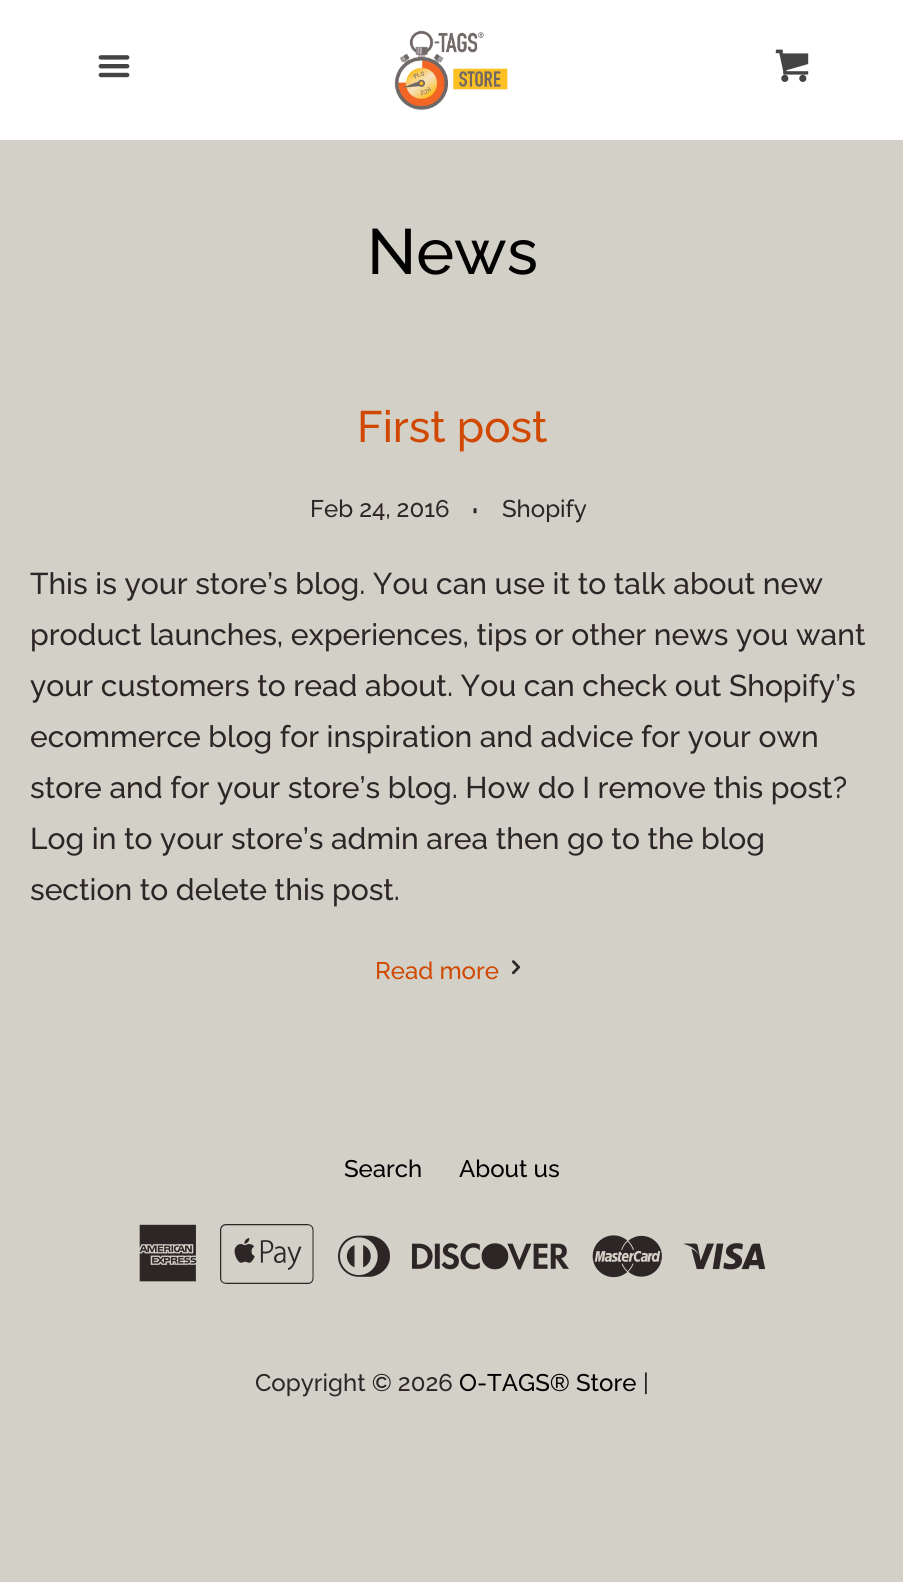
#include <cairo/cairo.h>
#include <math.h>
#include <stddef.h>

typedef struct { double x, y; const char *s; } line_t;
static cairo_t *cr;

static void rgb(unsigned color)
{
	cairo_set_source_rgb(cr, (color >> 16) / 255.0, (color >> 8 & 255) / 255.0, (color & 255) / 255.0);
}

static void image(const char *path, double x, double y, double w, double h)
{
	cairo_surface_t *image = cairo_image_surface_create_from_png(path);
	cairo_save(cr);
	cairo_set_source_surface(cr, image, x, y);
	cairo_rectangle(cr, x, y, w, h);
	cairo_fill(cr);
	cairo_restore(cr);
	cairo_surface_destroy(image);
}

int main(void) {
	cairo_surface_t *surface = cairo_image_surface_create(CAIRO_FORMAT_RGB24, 903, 1582);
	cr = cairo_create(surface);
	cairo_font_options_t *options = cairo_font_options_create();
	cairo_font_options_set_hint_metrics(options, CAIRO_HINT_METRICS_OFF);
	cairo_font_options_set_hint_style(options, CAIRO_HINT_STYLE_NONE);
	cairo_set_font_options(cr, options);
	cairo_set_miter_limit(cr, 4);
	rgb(0xffffff);
	cairo_paint(cr);
	image("img/1.png", 98, 55, 32, 23);
	image("img/2.png", 394, 30, 114, 80);
	image("img/3.png", 775, 49, 34, 33);
	rgb(0xd3d0c8);
	cairo_rectangle(cr, 0, 140, 903, 1442);
	cairo_fill(cr);
	image("img/4.png", 511, 960, 10, 15);
	image("img/5.png", 139, 1224, 58, 58);
	image("img/6.png", 220, 1224, 94, 60);
	image("img/7.png", 338, 1235, 52, 42);
	image("img/8.png", 412, 1243, 157, 27);
	image("img/9.png", 592, 1235, 70, 43);
	image("img/10.png", 684, 1243, 82, 27);
	cairo_select_font_face(cr, "Raleway Medium", CAIRO_FONT_SLANT_NORMAL, CAIRO_FONT_WEIGHT_NORMAL);
	cairo_set_font_size(cr, 64);
	rgb(0x000000);
	cairo_move_to(cr, 367, 274);
	cairo_show_text(cr, "News");
	cairo_set_font_size(cr, 44);
	rgb(0xd14800);
	cairo_move_to(cr, 357, 442);
	cairo_show_text(cr, "First post");
	cairo_set_font_size(cr, 24);
	rgb(0x2d2626);
	cairo_move_to(cr, 310, 517);
	cairo_show_text(cr, "Feb 24, 2016");
	cairo_set_font_size(cr, 40);
	cairo_move_to(cr, 471, 523);
	cairo_show_text(cr, "·");
	cairo_set_font_size(cr, 24);
	cairo_move_to(cr, 502, 517);
	cairo_show_text(cr, "Shopify");
	cairo_set_font_size(cr, 30);
	{
		static const line_t items[] = {
			{30, 594, "This is your store’s blog. You can use it to talk about new"},
			{30, 645, "product launches, experiences, tips or other news you want"},
			{30, 696, "your customers to read about. You can check out Shopify’s"},
			{30, 747, "ecommerce blog for inspiration and advice for your own"},
			{30, 798, "store and for your store’s blog. How do I remove this post?"},
			{30, 849, "Log in to your store’s admin area then go to the blog"},
			{30, 900, "section to delete this post."},
		};
		for (size_t i = 0; i < sizeof items / sizeof *items; i++) {
			cairo_move_to(cr, items[i].x, items[i].y);
			cairo_show_text(cr, items[i].s);
		}
	}
	cairo_set_font_size(cr, 24);
	rgb(0xd14800);
	cairo_move_to(cr, 375, 979);
	cairo_show_text(cr, "Read more");
	rgb(0x000000);
	cairo_move_to(cr, 344, 1177);
	cairo_show_text(cr, "Search");
	cairo_move_to(cr, 459, 1177);
	cairo_show_text(cr, "About us");
	rgb(0x2d2626);
	cairo_move_to(cr, 255, 1391);
	cairo_show_text(cr, "Copyright © 2026");
	rgb(0x000000);
	cairo_move_to(cr, 459, 1391);
	cairo_show_text(cr, "O-TAGS® Store");
	rgb(0x2d2626);
	cairo_move_to(cr, 643, 1391);
	cairo_show_text(cr, "|");
	cairo_surface_write_to_png(surface, "page.png");
	cairo_font_options_destroy(options);
	cairo_destroy(cr);
	cairo_surface_destroy(surface);
	return 0;
}
